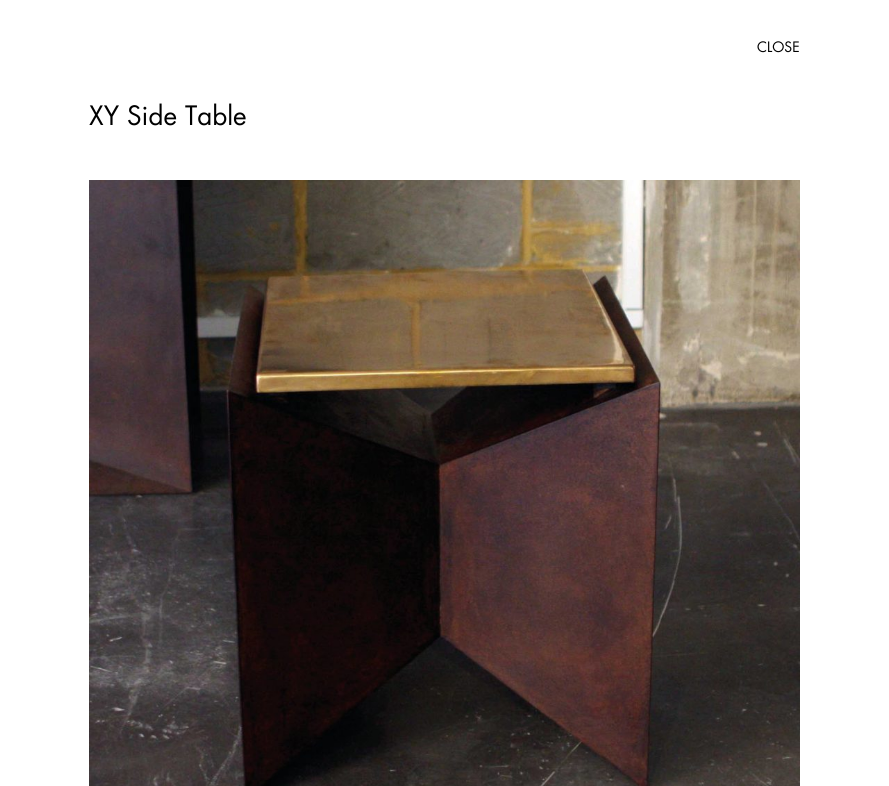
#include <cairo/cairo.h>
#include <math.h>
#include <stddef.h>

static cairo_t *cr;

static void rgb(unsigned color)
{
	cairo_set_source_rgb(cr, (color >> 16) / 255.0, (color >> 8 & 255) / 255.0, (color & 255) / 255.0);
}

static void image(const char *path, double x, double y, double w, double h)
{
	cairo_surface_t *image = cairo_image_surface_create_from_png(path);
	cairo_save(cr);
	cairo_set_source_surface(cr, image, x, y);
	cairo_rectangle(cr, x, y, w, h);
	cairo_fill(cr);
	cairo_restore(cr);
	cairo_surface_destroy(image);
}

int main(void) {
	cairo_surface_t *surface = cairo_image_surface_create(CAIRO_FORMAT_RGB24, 889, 786);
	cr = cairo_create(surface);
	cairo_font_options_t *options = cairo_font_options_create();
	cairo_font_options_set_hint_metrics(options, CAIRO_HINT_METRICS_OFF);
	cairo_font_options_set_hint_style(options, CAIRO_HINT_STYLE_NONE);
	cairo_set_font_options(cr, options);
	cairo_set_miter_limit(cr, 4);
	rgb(0xffffff);
	cairo_paint(cr);
	image("img/1.png", 89, 180, 711, 606);
	cairo_select_font_face(cr, "Futura", CAIRO_FONT_SLANT_NORMAL, CAIRO_FONT_WEIGHT_NORMAL);
	cairo_set_font_size(cr, 14);
	rgb(0x000000);
	cairo_move_to(cr, 757, 52);
	cairo_show_text(cr, "CLOSE");
	cairo_set_font_size(cr, 26);
	cairo_move_to(cr, 89, 125);
	cairo_show_text(cr, "XY Side Table");
	cairo_surface_write_to_png(surface, "page.png");
	cairo_font_options_destroy(options);
	cairo_destroy(cr);
	cairo_surface_destroy(surface);
	return 0;
}
